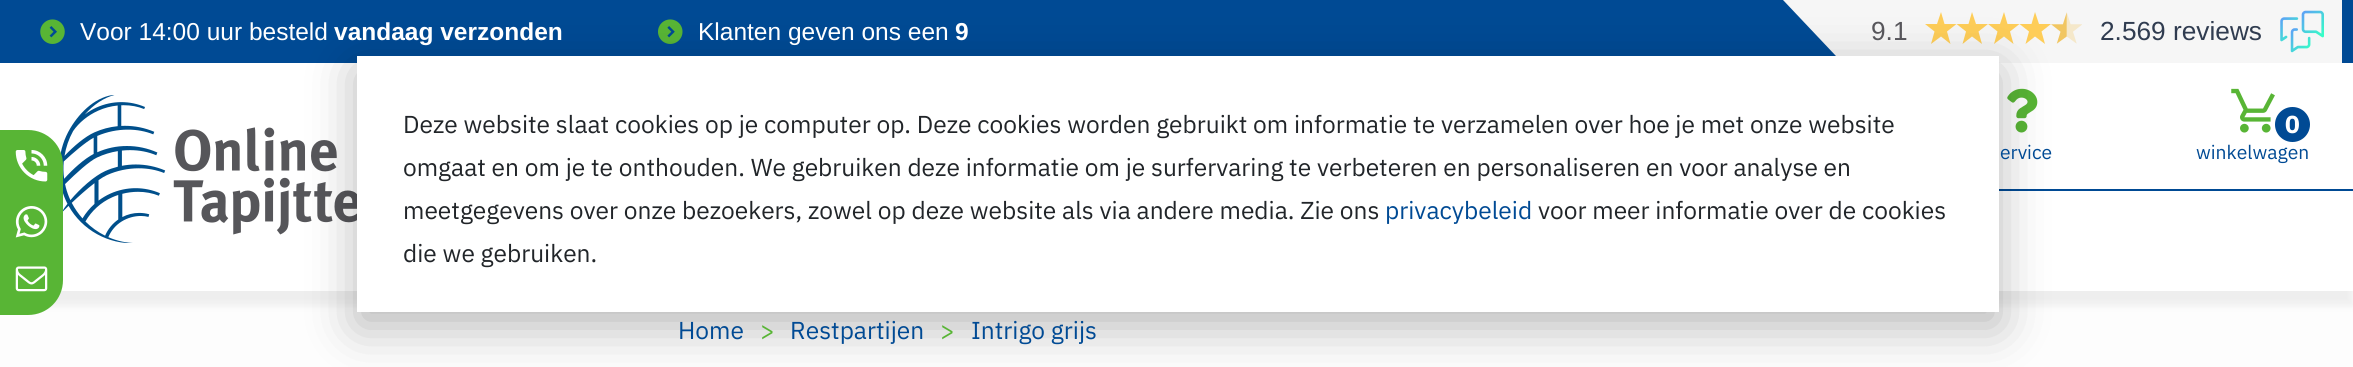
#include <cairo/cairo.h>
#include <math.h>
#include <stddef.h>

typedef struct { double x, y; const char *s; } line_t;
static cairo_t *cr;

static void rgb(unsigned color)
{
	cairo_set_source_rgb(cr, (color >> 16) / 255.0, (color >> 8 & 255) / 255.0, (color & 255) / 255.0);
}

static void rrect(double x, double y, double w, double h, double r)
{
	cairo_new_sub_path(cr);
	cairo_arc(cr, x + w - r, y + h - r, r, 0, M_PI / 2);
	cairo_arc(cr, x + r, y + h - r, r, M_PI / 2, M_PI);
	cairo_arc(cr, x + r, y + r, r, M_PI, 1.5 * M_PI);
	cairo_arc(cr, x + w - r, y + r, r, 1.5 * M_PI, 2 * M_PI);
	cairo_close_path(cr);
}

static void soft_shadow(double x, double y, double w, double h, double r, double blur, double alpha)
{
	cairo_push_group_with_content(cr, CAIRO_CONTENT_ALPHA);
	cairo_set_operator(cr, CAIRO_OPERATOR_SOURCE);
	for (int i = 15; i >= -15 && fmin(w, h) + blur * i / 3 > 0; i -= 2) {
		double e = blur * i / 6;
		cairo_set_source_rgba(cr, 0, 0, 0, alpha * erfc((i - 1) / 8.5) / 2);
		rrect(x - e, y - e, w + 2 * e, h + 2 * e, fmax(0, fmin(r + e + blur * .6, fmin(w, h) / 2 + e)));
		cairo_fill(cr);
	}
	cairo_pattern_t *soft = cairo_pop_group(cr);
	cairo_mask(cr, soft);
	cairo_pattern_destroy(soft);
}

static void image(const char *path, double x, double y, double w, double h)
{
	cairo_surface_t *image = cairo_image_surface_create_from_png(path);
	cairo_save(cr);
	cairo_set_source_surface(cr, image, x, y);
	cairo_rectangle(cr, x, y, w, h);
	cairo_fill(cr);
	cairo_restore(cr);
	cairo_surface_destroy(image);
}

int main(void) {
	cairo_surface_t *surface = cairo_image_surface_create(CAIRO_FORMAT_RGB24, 2353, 367);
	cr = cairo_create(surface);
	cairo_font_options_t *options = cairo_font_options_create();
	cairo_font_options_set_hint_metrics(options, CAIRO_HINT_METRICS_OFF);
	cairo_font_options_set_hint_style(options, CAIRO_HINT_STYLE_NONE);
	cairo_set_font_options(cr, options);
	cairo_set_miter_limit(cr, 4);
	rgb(0xfdfdfd);
	cairo_paint(cr);
	rgb(0x004a94);
	cairo_rectangle(cr, 0, 0, 2353, 63);
	cairo_fill(cr);
	image("img/1.png", 40, 19, 25, 25);
	image("img/2.png", 658, 19, 25, 25);
	rgb(0xf6f6f6);
	cairo_rectangle(cr, 1853, 0, 489, 63);
	cairo_fill(cr);
	cairo_new_path(cr);
	cairo_move_to(cr, 1783, 0);
	cairo_line_to(cr, 1853, 0);
	cairo_line_to(cr, 1853, 74);
	cairo_close_path(cr);
	cairo_fill(cr);
	rgb(0xfecd58);
	cairo_new_path(cr);
	cairo_move_to(cr, 1950.5, 44);
	cairo_line_to(cr, 1947, 31.5);
	cairo_line_to(cr, 1956.5, 24);
	cairo_line_to(cr, 1944.5, 24);
	cairo_line_to(cr, 1941, 12);
	cairo_line_to(cr, 1937, 24);
	cairo_line_to(cr, 1925, 24);
	cairo_line_to(cr, 1934.5, 31.5);
	cairo_line_to(cr, 1931, 44);
	cairo_line_to(cr, 1941, 36.5);
	cairo_close_path(cr);
	cairo_move_to(cr, 1982, 44);
	cairo_line_to(cr, 1978.5, 31.5);
	cairo_line_to(cr, 1988, 24);
	cairo_line_to(cr, 1976, 24);
	cairo_line_to(cr, 1972, 12);
	cairo_line_to(cr, 1968.5, 24);
	cairo_line_to(cr, 1956.5, 24);
	cairo_line_to(cr, 1966, 31.5);
	cairo_line_to(cr, 1962.5, 44);
	cairo_line_to(cr, 1972, 36.5);
	cairo_close_path(cr);
	cairo_fill(cr);
	cairo_new_path(cr);
	cairo_move_to(cr, 2013.5, 44);
	cairo_line_to(cr, 2010, 31.5);
	cairo_line_to(cr, 2019.5, 24);
	cairo_line_to(cr, 2007.5, 24);
	cairo_line_to(cr, 2004, 12);
	cairo_line_to(cr, 2000, 24);
	cairo_line_to(cr, 1988, 24);
	cairo_line_to(cr, 1997.5, 31.5);
	cairo_line_to(cr, 1994, 44);
	cairo_line_to(cr, 2004, 36.5);
	cairo_close_path(cr);
	cairo_move_to(cr, 2045, 44);
	cairo_line_to(cr, 2041.5, 31.5);
	cairo_line_to(cr, 2051, 24);
	cairo_line_to(cr, 2039, 24);
	cairo_line_to(cr, 2035, 12);
	cairo_line_to(cr, 2031.5, 24);
	cairo_line_to(cr, 2019.5, 24);
	cairo_line_to(cr, 2029, 31.5);
	cairo_line_to(cr, 2025.5, 44);
	cairo_line_to(cr, 2035, 36.5);
	cairo_close_path(cr);
	cairo_fill(cr);
	image("img/3.png", 2051, 12, 31, 32);
	image("img/4.png", 2280, 10, 44, 43);
	rgb(0x000000);
	soft_shadow(0, 79, 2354, 227, 0, 4, 0.06);
	rgb(0xffffff);
	cairo_rectangle(cr, 0, 63, 2353, 228);
	cairo_fill(cr);
	image("img/8.png", 60, 95, 297, 148);
	rgb(0x58b535);
	cairo_new_path(cr);
	cairo_move_to(cr, 0, 130);
	cairo_line_to(cr, 28, 130);
	cairo_curve_to(cr, 47.5, 130, 63, 145.5, 63, 165);
	cairo_line_to(cr, 63, 280);
	cairo_curve_to(cr, 63, 299.5, 47.5, 315, 28, 315);
	cairo_line_to(cr, 0, 315);
	cairo_close_path(cr);
	cairo_fill(cr);
	image("img/5.png", 15, 150, 33, 32);
	image("img/6.png", 15, 206, 33, 32);
	image("img/7.png", 15, 266, 33, 26);
	image("img/9.png", 2007, 88, 31, 45);
	image("img/10.png", 2231, 88, 44, 45);
	rgb(0x004a94);
	cairo_arc(cr, 2292.5, 124.5, 17.5, 0, 2 * M_PI);
	cairo_fill(cr);
	cairo_rectangle(cr, 1999, 189, 354, 2);
	cairo_fill(cr);
	rgb(0x000000);
	soft_shadow(357, 70, 1642, 256, 0, 24.5, 0.28);
	rgb(0xffffff);
	cairo_rectangle(cr, 357, 56, 1642, 256);
	cairo_fill(cr);
	cairo_select_font_face(cr, "Liberation Sans", CAIRO_FONT_SLANT_NORMAL, CAIRO_FONT_WEIGHT_NORMAL);
	cairo_set_font_size(cr, 24.5);
	cairo_move_to(cr, 80, 40);
	cairo_show_text(cr, "Voor 14:00 uur besteld");
	cairo_select_font_face(cr, "Liberation Sans", CAIRO_FONT_SLANT_NORMAL, CAIRO_FONT_WEIGHT_BOLD);
	cairo_move_to(cr, 334, 40);
	cairo_show_text(cr, "vandaag verzonden");
	cairo_select_font_face(cr, "Liberation Sans", CAIRO_FONT_SLANT_NORMAL, CAIRO_FONT_WEIGHT_NORMAL);
	cairo_move_to(cr, 698, 40);
	cairo_show_text(cr, "Klanten geven ons een");
	cairo_select_font_face(cr, "Liberation Sans", CAIRO_FONT_SLANT_NORMAL, CAIRO_FONT_WEIGHT_BOLD);
	cairo_move_to(cr, 955, 40);
	cairo_show_text(cr, "9");
	cairo_select_font_face(cr, "Liberation Sans", CAIRO_FONT_SLANT_NORMAL, CAIRO_FONT_WEIGHT_NORMAL);
	cairo_set_font_size(cr, 26.25);
	rgb(0x57565b);
	cairo_move_to(cr, 1871, 40);
	cairo_show_text(cr, "9.1");
	rgb(0x303c50);
	cairo_move_to(cr, 2100, 40);
	cairo_show_text(cr, "2.569 reviews");
	cairo_select_font_face(cr, "IBM Plex Sans", CAIRO_FONT_SLANT_NORMAL, CAIRO_FONT_WEIGHT_NORMAL);
	cairo_set_font_size(cr, 19.25);
	rgb(0x004a94);
	cairo_move_to(cr, 2000, 159);
	cairo_show_text(cr, "ervice");
	cairo_select_font_face(cr, "IBM Plex Sans", CAIRO_FONT_SLANT_NORMAL, CAIRO_FONT_WEIGHT_BOLD);
	cairo_set_font_size(cr, 24.5);
	rgb(0xffffff);
	cairo_move_to(cr, 2285, 133);
	cairo_show_text(cr, "0");
	cairo_select_font_face(cr, "IBM Plex Sans", CAIRO_FONT_SLANT_NORMAL, CAIRO_FONT_WEIGHT_NORMAL);
	cairo_set_font_size(cr, 19.25);
	rgb(0x004a94);
	cairo_move_to(cr, 2196, 159);
	cairo_show_text(cr, "winkelwagen");
	cairo_set_font_size(cr, 24.5);
	cairo_move_to(cr, 678, 339);
	cairo_show_text(cr, "Home");
	rgb(0x58b535);
	cairo_move_to(cr, 760, 339);
	cairo_show_text(cr, ">");
	rgb(0x004a94);
	cairo_move_to(cr, 790, 339);
	cairo_show_text(cr, "Restpartijen");
	rgb(0x58b535);
	cairo_move_to(cr, 940, 339);
	cairo_show_text(cr, ">");
	rgb(0x004a94);
	cairo_move_to(cr, 971, 339);
	cairo_show_text(cr, "Intrigo grijs");
	rgb(0x212529);
	{
		static const line_t items[] = {
			{403, 133, "Deze website slaat cookies op je computer op. Deze cookies worden gebruikt om informatie te verzamelen over hoe je met onze website"},
			{403, 176, "omgaat en om je te onthouden. We gebruiken deze informatie om je surfervaring te verbeteren en personaliseren en voor analyse en"},
			{403, 219, "meetgegevens over onze bezoekers, zowel op deze website als via andere media. Zie ons"},
		};
		for (size_t i = 0; i < sizeof items / sizeof *items; i++) {
			cairo_move_to(cr, items[i].x, items[i].y);
			cairo_show_text(cr, items[i].s);
		}
	}
	rgb(0x004a94);
	cairo_move_to(cr, 1385, 219);
	cairo_show_text(cr, "privacybeleid");
	rgb(0x212529);
	cairo_move_to(cr, 1538, 219);
	cairo_show_text(cr, "voor meer informatie over de cookies");
	cairo_move_to(cr, 403, 262);
	cairo_show_text(cr, "die we gebruiken.");
	cairo_surface_write_to_png(surface, "page.png");
	cairo_font_options_destroy(options);
	cairo_destroy(cr);
	cairo_surface_destroy(surface);
	return 0;
}
